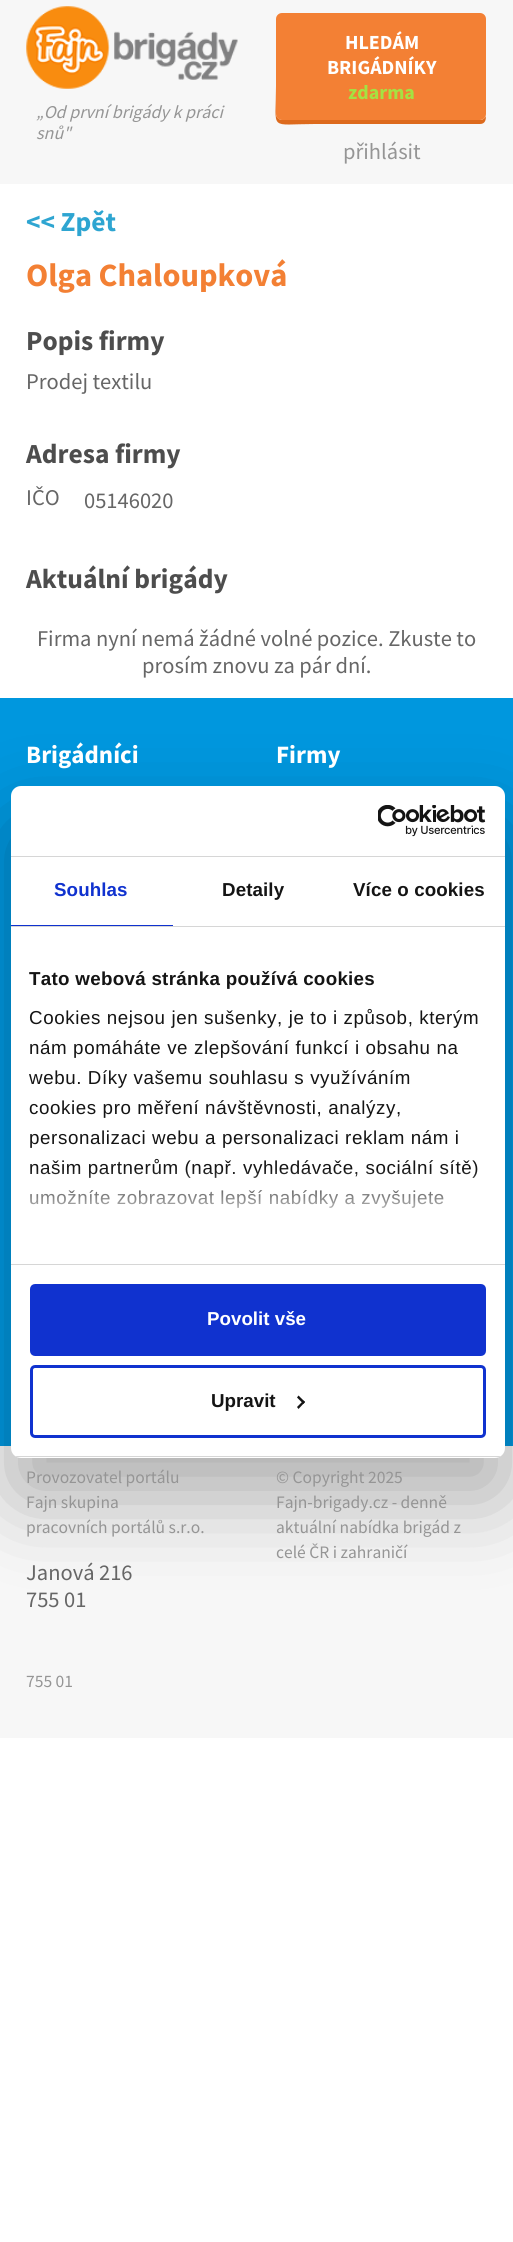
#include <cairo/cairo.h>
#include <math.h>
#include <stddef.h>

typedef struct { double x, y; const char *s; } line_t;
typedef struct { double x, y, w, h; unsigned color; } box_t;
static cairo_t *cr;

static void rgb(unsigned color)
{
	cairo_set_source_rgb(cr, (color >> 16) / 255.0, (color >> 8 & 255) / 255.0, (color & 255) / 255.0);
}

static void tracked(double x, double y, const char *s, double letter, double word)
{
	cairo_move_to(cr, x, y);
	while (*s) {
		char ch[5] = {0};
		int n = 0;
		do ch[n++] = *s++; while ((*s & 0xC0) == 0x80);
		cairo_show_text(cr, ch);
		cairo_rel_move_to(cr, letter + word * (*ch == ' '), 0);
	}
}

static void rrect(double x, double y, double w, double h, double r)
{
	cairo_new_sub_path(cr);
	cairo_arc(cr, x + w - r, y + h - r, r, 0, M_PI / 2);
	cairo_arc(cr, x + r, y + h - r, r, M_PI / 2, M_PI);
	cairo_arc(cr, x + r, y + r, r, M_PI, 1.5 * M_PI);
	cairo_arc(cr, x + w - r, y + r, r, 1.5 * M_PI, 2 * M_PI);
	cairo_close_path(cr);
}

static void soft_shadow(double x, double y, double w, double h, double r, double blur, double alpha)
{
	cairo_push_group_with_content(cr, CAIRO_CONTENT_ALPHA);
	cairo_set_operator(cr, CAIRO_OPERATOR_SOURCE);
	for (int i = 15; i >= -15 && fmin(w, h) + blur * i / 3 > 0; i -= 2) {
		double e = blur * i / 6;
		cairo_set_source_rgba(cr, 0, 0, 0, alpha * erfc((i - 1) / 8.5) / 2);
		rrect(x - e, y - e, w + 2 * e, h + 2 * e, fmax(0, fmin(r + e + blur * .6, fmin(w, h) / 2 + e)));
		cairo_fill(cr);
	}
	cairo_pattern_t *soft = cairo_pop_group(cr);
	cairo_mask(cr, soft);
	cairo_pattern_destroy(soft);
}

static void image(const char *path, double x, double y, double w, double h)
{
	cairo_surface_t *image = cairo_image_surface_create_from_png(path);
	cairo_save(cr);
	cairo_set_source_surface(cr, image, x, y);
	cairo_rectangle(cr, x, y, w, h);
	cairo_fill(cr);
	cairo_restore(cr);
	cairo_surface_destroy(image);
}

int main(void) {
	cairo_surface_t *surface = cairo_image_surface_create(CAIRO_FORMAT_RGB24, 513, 2242);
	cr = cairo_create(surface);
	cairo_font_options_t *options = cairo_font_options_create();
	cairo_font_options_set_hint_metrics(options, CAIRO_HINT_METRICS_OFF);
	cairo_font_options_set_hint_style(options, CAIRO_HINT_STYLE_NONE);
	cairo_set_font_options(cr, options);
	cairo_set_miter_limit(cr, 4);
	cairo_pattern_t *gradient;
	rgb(0xffffff);
	cairo_paint(cr);
	rgb(0xf7f7f7);
	cairo_rectangle(cr, 0, 0, 513, 184);
	cairo_fill(cr);
	image("img/1.png", 26, 6, 212, 83);
	rgb(0xdd6a1d);
	cairo_new_path(cr);
	cairo_move_to(cr, 276, 20);
	cairo_line_to(cr, 276, 86);
	cairo_curve_to(cr, 276, 132, 268, 124, 315, 124);
	cairo_line_to(cr, 480, 124);
	cairo_curve_to(cr, 485, 124, 486, 120, 486, 116);
	cairo_curve_to(cr, 485, 118, 483, 120, 480, 120);
	cairo_line_to(cr, 282, 120);
	cairo_curve_to(cr, 279, 120, 276, 117, 276, 114);
	cairo_close_path(cr);
	cairo_fill(cr);
	rgb(0xf38034);
	rrect(276, 13, 210, 107, 6);
	cairo_fill(cr);
	rgb(0x0097de);
	cairo_rectangle(cr, 0, 698, 513, 748);
	cairo_fill(cr);
	rgb(0xf7f7f7);
	cairo_rectangle(cr, 0, 1446, 513, 292);
	cairo_fill(cr);
	rgb(0x000000);
	soft_shadow(11, 826, 494, 672, 10, 42.5, 0.3);
	rgb(0xffffff);
	rrect(11, 786, 494, 672, 10);
	cairo_fill(cr);
	rgb(0xd6d6d6);
	cairo_rectangle(cr, 11, 856, 494, 1);
	cairo_fill(cr);
	image("img/2.png", 378, 805, 108, 32);
	{
		static const box_t items[] = {
			{11, 926, 494, 1, 0xd6d6d6},
			{11, 925, 162, 1, 0x1032cf},
			{11, 1264, 494, 1, 0xd6d6d6},
		};
		for (size_t i = 0; i < sizeof items / sizeof *items; i++) {
			rgb(items[i].color);
			cairo_rectangle(cr, items[i].x, items[i].y, items[i].w, items[i].h);
			cairo_fill(cr);
		}
	}
	cairo_save(cr);
	rrect(11, 786, 494, 672, 10);
	cairo_clip(cr);
	cairo_rectangle(cr, 11, 1456, 494, 1);
	cairo_fill(cr);
	cairo_restore(cr);
	rgb(0x1032cf);
	rrect(31.5, 1285.5, 453, 69, 3.5);
	cairo_fill_preserve(cr);
	cairo_set_line_width(cr, 3);
	cairo_stroke(cr);
	rrect(31.5, 1366.5, 453, 70, 3.5);
	cairo_stroke(cr);
	rgb(0x141414);
	cairo_new_path(cr);
	cairo_move_to(cr, 298.5, 1395.5);
	cairo_line_to(cr, 305, 1402);
	cairo_line_to(cr, 303.5, 1404);
	cairo_line_to(cr, 297, 1397.5);
	cairo_close_path(cr);
	cairo_fill(cr);
	cairo_new_path(cr);
	cairo_move_to(cr, 303.5, 1400.5);
	cairo_line_to(cr, 305, 1402);
	cairo_line_to(cr, 298.5, 1409);
	cairo_line_to(cr, 297, 1407);
	cairo_close_path(cr);
	cairo_fill(cr);
	cairo_select_font_face(cr, "Source Sans Pro", CAIRO_FONT_SLANT_ITALIC, CAIRO_FONT_WEIGHT_NORMAL);
	cairo_set_font_size(cr, 18);
	rgb(0x959595);
	cairo_move_to(cr, 36, 118);
	cairo_show_text(cr, "„Od první brigády k práci");
	cairo_move_to(cr, 36, 139);
	cairo_show_text(cr, "snů\"");
	cairo_select_font_face(cr, "Source Sans Pro", CAIRO_FONT_SLANT_NORMAL, CAIRO_FONT_WEIGHT_BOLD);
	cairo_set_font_size(cr, 20);
	rgb(0xffffff);
	cairo_move_to(cr, 345, 49);
	cairo_show_text(cr, "HLEDÁM");
	cairo_move_to(cr, 327, 74);
	cairo_show_text(cr, "BRIGÁDNÍKY");
	rgb(0xa4e242);
	cairo_move_to(cr, 348, 99);
	cairo_show_text(cr, "zdarma");
	cairo_select_font_face(cr, "Source Sans Pro", CAIRO_FONT_SLANT_NORMAL, CAIRO_FONT_WEIGHT_NORMAL);
	cairo_set_font_size(cr, 22.5);
	rgb(0x959595);
	cairo_move_to(cr, 343, 159);
	cairo_show_text(cr, "přihlásit");
	cairo_select_font_face(cr, "Source Sans Pro", CAIRO_FONT_SLANT_NORMAL, CAIRO_FONT_WEIGHT_BOLD);
	cairo_set_font_size(cr, 27.5);
	rgb(0x2ea5d1);
	cairo_move_to(cr, 26, 231);
	cairo_show_text(cr, "<< Zpět");
	cairo_set_font_size(cr, 32.5);
	rgb(0xf38034);
	cairo_move_to(cr, 26, 286);
	cairo_show_text(cr, "Olga Chaloupková");
	cairo_set_font_size(cr, 27.5);
	rgb(0x4d4d4d);
	cairo_move_to(cr, 26, 350);
	cairo_show_text(cr, "Popis firmy");
	cairo_select_font_face(cr, "Source Sans Pro", CAIRO_FONT_SLANT_NORMAL, CAIRO_FONT_WEIGHT_NORMAL);
	cairo_set_font_size(cr, 22.5);
	rgb(0x666666);
	cairo_move_to(cr, 26, 389);
	cairo_show_text(cr, "Prodej textilu");
	cairo_select_font_face(cr, "Source Sans Pro", CAIRO_FONT_SLANT_NORMAL, CAIRO_FONT_WEIGHT_BOLD);
	cairo_set_font_size(cr, 27.5);
	rgb(0x4d4d4d);
	cairo_move_to(cr, 26, 463);
	cairo_show_text(cr, "Adresa firmy");
	cairo_select_font_face(cr, "Source Sans Pro", CAIRO_FONT_SLANT_NORMAL, CAIRO_FONT_WEIGHT_NORMAL);
	cairo_set_font_size(cr, 22.5);
	rgb(0x666666);
	cairo_move_to(cr, 26, 505);
	cairo_show_text(cr, "IČO");
	cairo_move_to(cr, 84, 508);
	cairo_show_text(cr, "05146020");
	cairo_select_font_face(cr, "Source Sans Pro", CAIRO_FONT_SLANT_NORMAL, CAIRO_FONT_WEIGHT_BOLD);
	cairo_set_font_size(cr, 27.5);
	rgb(0x4d4d4d);
	cairo_move_to(cr, 26, 588);
	cairo_show_text(cr, "Aktuální brigády");
	cairo_select_font_face(cr, "Source Sans Pro", CAIRO_FONT_SLANT_NORMAL, CAIRO_FONT_WEIGHT_NORMAL);
	cairo_set_font_size(cr, 22.5);
	rgb(0x666666);
	cairo_move_to(cr, 37, 646);
	cairo_show_text(cr, "Firma nyní nemá žádné volné pozice. Zkuste to");
	cairo_move_to(cr, 142, 673);
	cairo_show_text(cr, "prosím znovu za pár dní.");
	cairo_select_font_face(cr, "Source Sans Pro", CAIRO_FONT_SLANT_NORMAL, CAIRO_FONT_WEIGHT_BOLD);
	cairo_set_font_size(cr, 25);
	rgb(0xffffff);
	cairo_move_to(cr, 26, 763);
	cairo_show_text(cr, "Brigádníci");
	cairo_move_to(cr, 276, 763);
	cairo_show_text(cr, "Firmy");
	cairo_select_font_face(cr, "Liberation Sans", CAIRO_FONT_SLANT_NORMAL, CAIRO_FONT_WEIGHT_BOLD);
	cairo_set_font_size(cr, 18.75);
	rgb(0x1032cf);
	tracked(54, 896, "Souhlas", 0.1, 0);
	rgb(0x141414);
	tracked(222, 896, "Detaily", 0.1, 0);
	tracked(353, 896, "Více o cookies", 0.1, 0);
	tracked(29, 985, "Tato webová stránka používá cookies", 0.3, 0);
	cairo_select_font_face(cr, "Liberation Sans", CAIRO_FONT_SLANT_NORMAL, CAIRO_FONT_WEIGHT_NORMAL);
	{
		static const line_t items[] = {
			{29, 1024, "Cookies nejsou jen sušenky, je to i způsob, kterým"},
			{29, 1054, "nám pomáháte ve zlepšování funkcí i obsahu na"},
			{29, 1084, "webu. Díky vašemu souhlasu s využíváním"},
			{29, 1114, "cookies pro měření návštěvnosti, analýzy,"},
			{29, 1144, "personalizaci webu a personalizaci reklam nám i"},
			{29, 1174, "našim partnerům (např. vyhledávače, sociální sítě)"},
			{29, 1204, "umožníte zobrazovat lepší nabídky a zvyšujete"},
		};
		for (size_t i = 0; i < sizeof items / sizeof *items; i++) {
			tracked(items[i].x, items[i].y, items[i].s, 0.6, 0);
		}
	}
	gradient = cairo_pattern_create_linear(249, 1263, 249, 1169);
	cairo_pattern_add_color_stop_rgba(gradient, 0, 1, 1, 1, 1);
	cairo_pattern_add_color_stop_rgba(gradient, 0.5, 1, 1, 1, 0.8);
	cairo_pattern_add_color_stop_rgba(gradient, 1, 1, 1, 1, 0);
	cairo_set_source(cr, gradient);
	cairo_pattern_destroy(gradient);
	cairo_rectangle(cr, 29, 1170, 449, 38);
	cairo_fill(cr);
	cairo_select_font_face(cr, "Liberation Sans", CAIRO_FONT_SLANT_NORMAL, CAIRO_FONT_WEIGHT_BOLD);
	rgb(0xffffff);
	cairo_move_to(cr, 207, 1325);
	cairo_show_text(cr, "Povolit vše");
	rgb(0x141414);
	cairo_move_to(cr, 211, 1407);
	cairo_show_text(cr, "Upravit");
	cairo_select_font_face(cr, "Source Sans Pro", CAIRO_FONT_SLANT_NORMAL, CAIRO_FONT_WEIGHT_NORMAL);
	cairo_set_font_size(cr, 17.5);
	rgb(0x959595);
	{
		static const line_t items[] = {
			{26, 1483, "Provozovatel portálu"},
			{26, 1508, "Fajn skupina"},
			{26, 1533, "pracovních portálů s.r.o."},
		};
		for (size_t i = 0; i < sizeof items / sizeof *items; i++) {
			cairo_move_to(cr, items[i].x, items[i].y);
			cairo_show_text(cr, items[i].s);
		}
	}
	cairo_set_font_size(cr, 22.5);
	rgb(0x666666);
	cairo_move_to(cr, 26, 1580);
	cairo_show_text(cr, "Janová 216");
	cairo_move_to(cr, 26, 1607);
	cairo_show_text(cr, "755 01");
	cairo_set_font_size(cr, 17.5);
	rgb(0x959595);
	{
		static const line_t items[] = {
			{26, 1687, "755 01"},
			{276, 1483, "© Copyright 2025"},
			{276, 1508, "Fajn-brigady.cz - denně"},
			{276, 1533, "aktuální nabídka brigád z"},
			{276, 1558, "celé ČR i zahraničí"},
		};
		for (size_t i = 0; i < sizeof items / sizeof *items; i++) {
			cairo_move_to(cr, items[i].x, items[i].y);
			cairo_show_text(cr, items[i].s);
		}
	}
	cairo_surface_write_to_png(surface, "page.png");
	cairo_font_options_destroy(options);
	cairo_destroy(cr);
	cairo_surface_destroy(surface);
	return 0;
}
